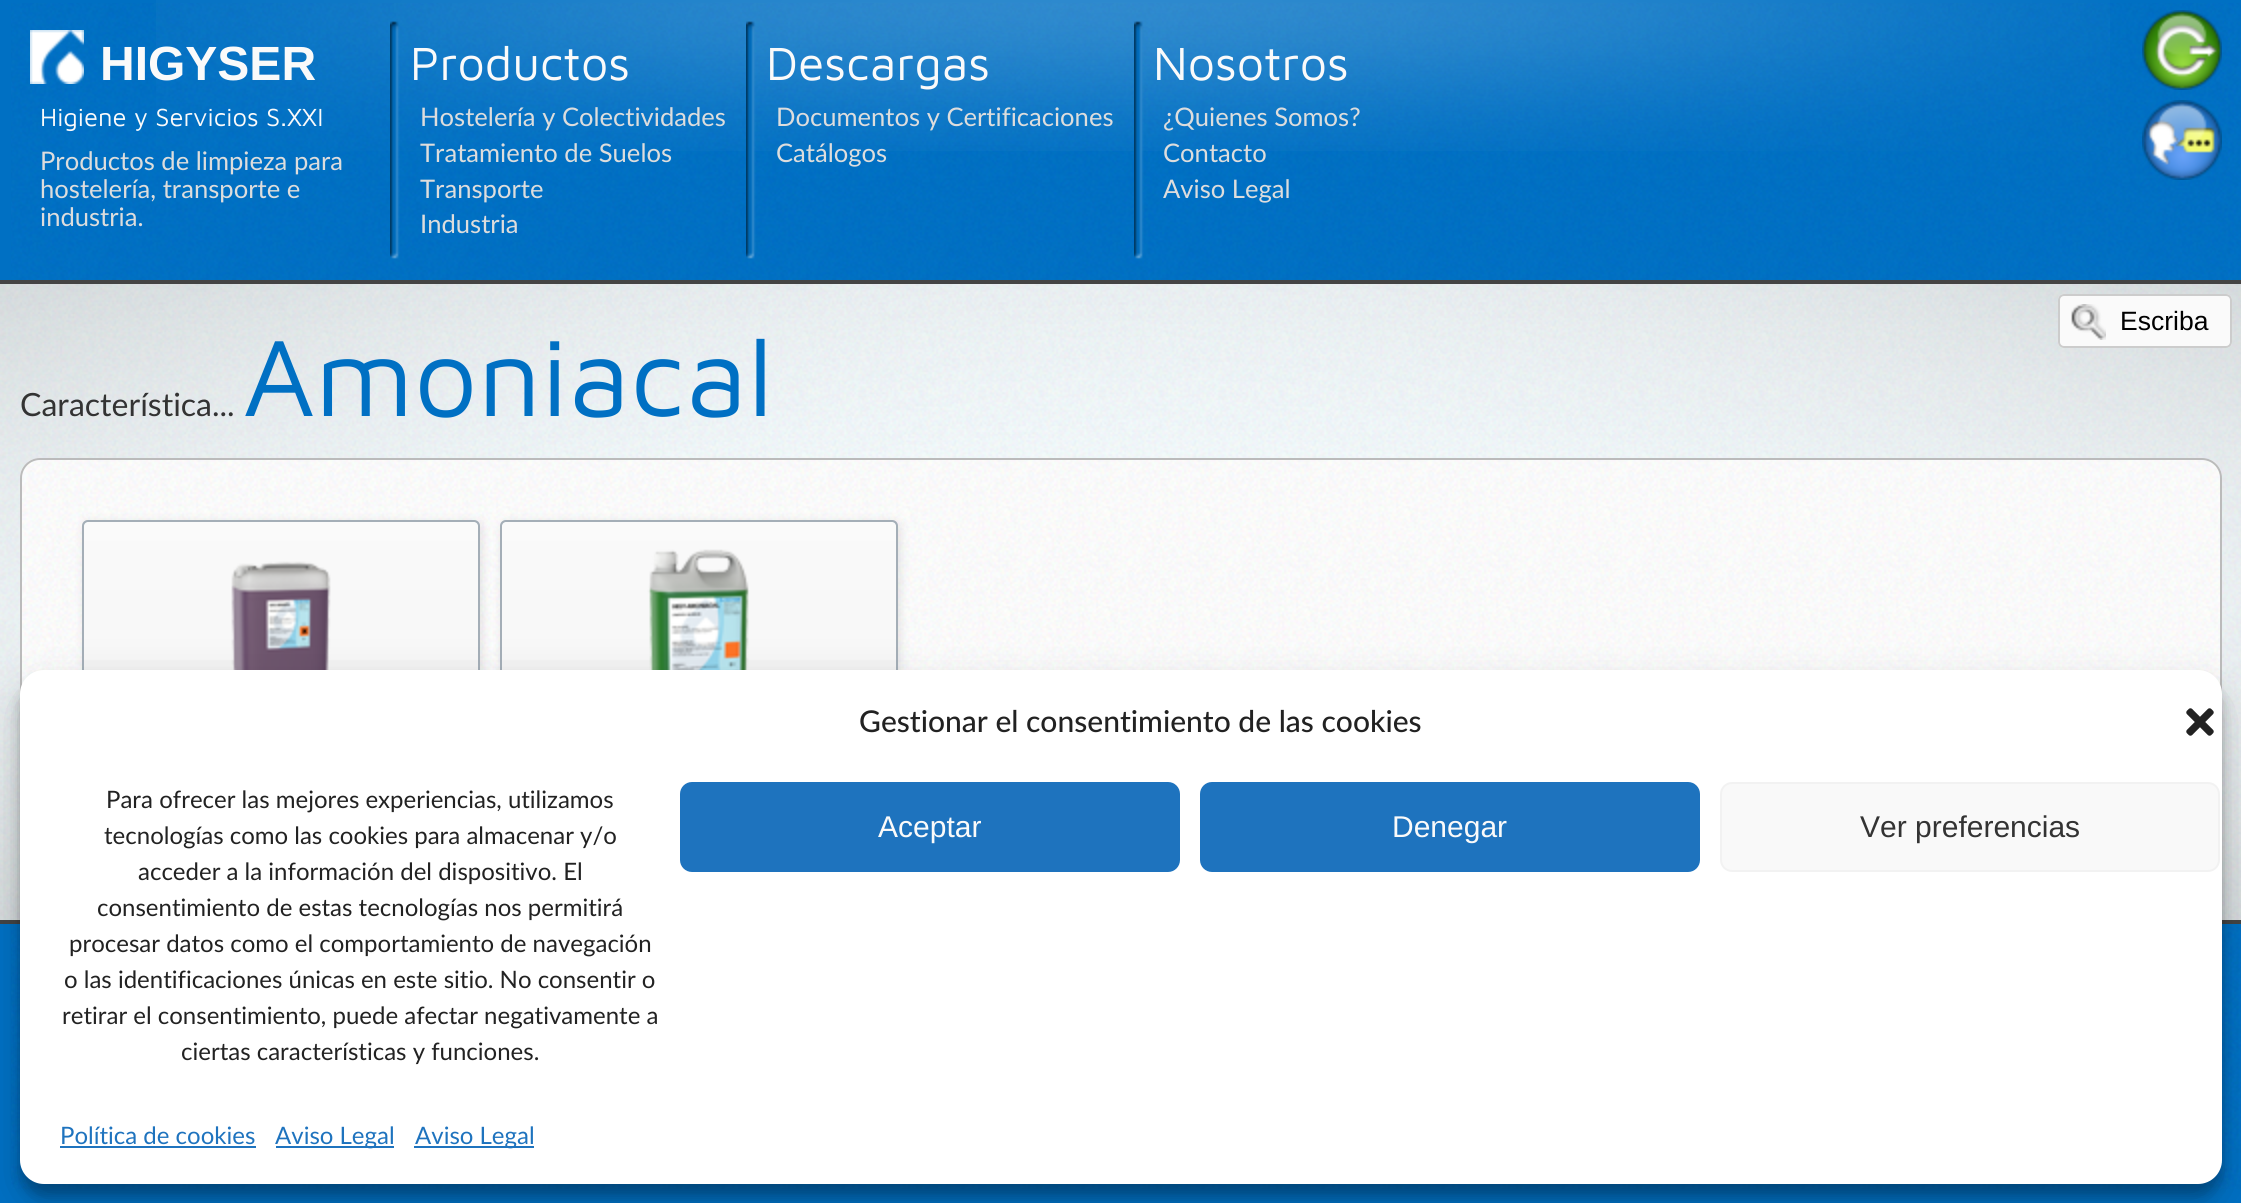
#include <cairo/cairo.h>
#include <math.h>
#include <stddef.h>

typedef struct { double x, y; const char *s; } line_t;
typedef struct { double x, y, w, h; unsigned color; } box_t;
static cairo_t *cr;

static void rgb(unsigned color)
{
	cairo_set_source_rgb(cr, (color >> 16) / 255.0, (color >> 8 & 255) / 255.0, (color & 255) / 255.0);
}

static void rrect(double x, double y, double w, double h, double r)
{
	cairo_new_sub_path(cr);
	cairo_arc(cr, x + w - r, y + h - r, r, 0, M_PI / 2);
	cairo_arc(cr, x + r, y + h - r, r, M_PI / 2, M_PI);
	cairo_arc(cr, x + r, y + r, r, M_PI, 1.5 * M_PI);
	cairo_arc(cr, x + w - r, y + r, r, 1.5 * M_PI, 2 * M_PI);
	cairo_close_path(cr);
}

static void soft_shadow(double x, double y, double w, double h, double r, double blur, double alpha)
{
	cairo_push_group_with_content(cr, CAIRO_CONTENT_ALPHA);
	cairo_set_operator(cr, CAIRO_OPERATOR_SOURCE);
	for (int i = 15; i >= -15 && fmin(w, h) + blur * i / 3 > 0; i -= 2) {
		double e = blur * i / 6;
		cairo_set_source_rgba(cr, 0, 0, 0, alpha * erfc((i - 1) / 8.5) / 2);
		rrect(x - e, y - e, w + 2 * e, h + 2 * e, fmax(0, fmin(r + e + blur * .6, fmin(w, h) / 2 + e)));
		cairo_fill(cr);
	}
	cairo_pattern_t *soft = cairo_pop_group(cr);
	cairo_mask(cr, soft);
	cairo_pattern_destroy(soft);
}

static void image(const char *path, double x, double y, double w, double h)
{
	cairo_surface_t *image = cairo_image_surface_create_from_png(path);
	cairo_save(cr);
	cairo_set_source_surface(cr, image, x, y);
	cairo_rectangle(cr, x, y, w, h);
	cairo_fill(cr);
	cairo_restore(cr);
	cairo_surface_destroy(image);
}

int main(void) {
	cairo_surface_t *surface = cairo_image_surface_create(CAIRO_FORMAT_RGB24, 2241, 1203);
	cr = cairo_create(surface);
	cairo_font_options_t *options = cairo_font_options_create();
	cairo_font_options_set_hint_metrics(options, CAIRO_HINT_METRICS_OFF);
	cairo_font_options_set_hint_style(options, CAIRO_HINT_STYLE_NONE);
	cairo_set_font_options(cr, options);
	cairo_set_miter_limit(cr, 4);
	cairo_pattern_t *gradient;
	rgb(0x0070c3);
	cairo_paint(cr);
	image("img/1.png", 11, 1164, 2230, 25);
	image("img/2.png", 11, 3, 2230, 277);
	image("img/3.png", 156, 0, 1954, 151);
	image("img/4.png", 30, 30, 54, 54);
	image("img/5.png", 390, 21, 10, 238);
	image("img/6.png", 746, 21, 10, 238);
	image("img/7.png", 1134, 21, 10, 238);
	image("img/8.png", 2142, 10, 80, 80);
	image("img/9.png", 2142, 100, 80, 80);
	image("img/10.png", 0, 284, 2241, 636);
	rgb(0x444444);
	cairo_rectangle(cr, 0, 280, 2241, 4);
	cairo_fill(cr);
	cairo_rectangle(cr, 0, 920, 2241, 4);
	cairo_fill(cr);
	image("img/11.png", 0, 284, 2241, 636);
	rgb(0xfafafa);
	rrect(2058, 294, 174, 54, 6);
	cairo_fill(cr);
	image("img/12.png", 2071, 304, 35, 36);
	rrect(2059, 295, 172, 52, 5);
	rgb(0xcccccc);
	cairo_stroke(cr);
	image("img/13.png", 20, 458, 2202, 227);
	rrect(21, 459, 2200, 420, 19);
	rgb(0xbbbbbb);
	cairo_stroke(cr);
	image("img/18.png", 11, 927, 2230, 226);
	rgb(0x000000);
	soft_shadow(84, 522, 398, 416, 6, 5, 0.1);
	image("img/14.png", 82, 520, 398, 8);
	rrect(85, 523, 392, 410, 3);
	cairo_set_source_rgba(cr, 1, 1, 1, 0.8);
	cairo_stroke(cr);
	rrect(83, 521, 396, 414, 5);
	rgb(0xa4aeb7);
	cairo_stroke(cr);
	gradient = cairo_pattern_create_linear(281, 522, 281, 736);
	cairo_pattern_add_color_stop_rgba(gradient, 0, 0.98, 0.98, 0.98, 1);
	cairo_pattern_add_color_stop_rgba(gradient, 0.64, 0.969, 0.969, 0.969, 1);
	cairo_pattern_add_color_stop_rgba(gradient, 0.65, 0.953, 0.953, 0.953, 1);
	cairo_pattern_add_color_stop_rgba(gradient, 1, 0.933, 0.933, 0.933, 1);
	cairo_set_source(cr, gradient);
	cairo_pattern_destroy(gradient);
	rrect(84, 522, 394, 214, 6);
	cairo_fill(cr);
	image("img/15.png", 231, 561, 100, 109);
	rgb(0x000000);
	soft_shadow(502, 522, 398, 378, 6, 5, 0.1);
	image("img/16.png", 500, 520, 398, 8);
	rrect(503, 523, 392, 372, 3);
	cairo_set_source_rgba(cr, 1, 1, 1, 0.8);
	cairo_stroke(cr);
	rrect(501, 521, 396, 376, 5);
	rgb(0xa4aeb7);
	cairo_stroke(cr);
	gradient = cairo_pattern_create_linear(699, 522, 699, 736);
	cairo_pattern_add_color_stop_rgba(gradient, 0, 0.98, 0.98, 0.98, 1);
	cairo_pattern_add_color_stop_rgba(gradient, 0.64, 0.969, 0.969, 0.969, 1);
	cairo_pattern_add_color_stop_rgba(gradient, 0.65, 0.953, 0.953, 0.953, 1);
	cairo_pattern_add_color_stop_rgba(gradient, 1, 0.933, 0.933, 0.933, 1);
	cairo_set_source(cr, gradient);
	cairo_pattern_destroy(gradient);
	rrect(502, 522, 394, 214, 6);
	cairo_fill(cr);
	image("img/17.png", 647, 549, 103, 121);
	rgb(0x000000);
	soft_shadow(20, 682, 2202, 514, 24, 6, 0.23);
	soft_shadow(20, 690, 2202, 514, 24, 20, 0.19);
	rgb(0xffffff);
	rrect(20, 670, 2202, 514, 24);
	cairo_fill(cr);
	image("img/19.png", 2186, 708, 28, 28);
	rgb(0x1e73be);
	rrect(681, 783, 498, 88, 11);
	cairo_fill_preserve(cr);
	cairo_stroke(cr);
	rrect(1201, 783, 498, 88, 11);
	cairo_fill_preserve(cr);
	cairo_stroke(cr);
	rgb(0xf9f9f9);
	rrect(1721, 783, 498, 88, 11);
	cairo_fill_preserve(cr);
	rgb(0xf2f2f2);
	cairo_stroke(cr);
	{
		static const box_t items[] = {
			{60, 1146, 196, 2, 0x1e73be},
			{276, 1146, 118, 2, 0x1e73be},
			{414, 1146, 120, 2, 0x1e73be},
		};
		for (size_t i = 0; i < sizeof items / sizeof *items; i++) {
			rgb(items[i].color);
			cairo_rectangle(cr, items[i].x, items[i].y, items[i].w, items[i].h);
			cairo_fill(cr);
		}
	}
	cairo_select_font_face(cr, "Liberation Sans", CAIRO_FONT_SLANT_NORMAL, CAIRO_FONT_WEIGHT_BOLD);
	cairo_set_font_size(cr, 48);
	rgb(0xfafafa);
	cairo_move_to(cr, 100, 80);
	cairo_show_text(cr, "HIGYSER");
	cairo_select_font_face(cr, "Maven Pro", CAIRO_FONT_SLANT_NORMAL, CAIRO_FONT_WEIGHT_NORMAL);
	cairo_set_font_size(cr, 25.6);
	cairo_move_to(cr, 40, 126);
	cairo_show_text(cr, "Higiene y Servicios S.XXI");
	cairo_select_font_face(cr, "Lato", CAIRO_FONT_SLANT_NORMAL, CAIRO_FONT_WEIGHT_NORMAL);
	rgb(0xdddddd);
	{
		static const line_t items[] = {
			{40, 170, "Productos de limpieza para"},
			{40, 198, "hostelería, transporte e"},
			{40, 226, "industria."},
		};
		for (size_t i = 0; i < sizeof items / sizeof *items; i++) {
			cairo_move_to(cr, items[i].x, items[i].y);
			cairo_show_text(cr, items[i].s);
		}
	}
	cairo_select_font_face(cr, "Maven Pro", CAIRO_FONT_SLANT_NORMAL, CAIRO_FONT_WEIGHT_NORMAL);
	cairo_set_font_size(cr, 48);
	rgb(0xfafafa);
	cairo_move_to(cr, 410, 80);
	cairo_show_text(cr, "Productos");
	cairo_select_font_face(cr, "Lato", CAIRO_FONT_SLANT_NORMAL, CAIRO_FONT_WEIGHT_NORMAL);
	cairo_set_font_size(cr, 25.6);
	rgb(0xdddddd);
	{
		static const line_t items[] = {
			{420, 126, "Hostelería y Colectividades"},
			{420, 162, "Tratamiento de Suelos"},
			{420, 198, "Transporte"},
			{420, 233, "Industria"},
		};
		for (size_t i = 0; i < sizeof items / sizeof *items; i++) {
			cairo_move_to(cr, items[i].x, items[i].y);
			cairo_show_text(cr, items[i].s);
		}
	}
	cairo_select_font_face(cr, "Maven Pro", CAIRO_FONT_SLANT_NORMAL, CAIRO_FONT_WEIGHT_NORMAL);
	cairo_set_font_size(cr, 48);
	rgb(0xfafafa);
	cairo_move_to(cr, 766, 80);
	cairo_show_text(cr, "Descargas");
	cairo_select_font_face(cr, "Lato", CAIRO_FONT_SLANT_NORMAL, CAIRO_FONT_WEIGHT_NORMAL);
	cairo_set_font_size(cr, 25.6);
	rgb(0xdddddd);
	cairo_move_to(cr, 776, 126);
	cairo_show_text(cr, "Documentos y Certificaciones");
	cairo_move_to(cr, 776, 162);
	cairo_show_text(cr, "Catálogos");
	cairo_select_font_face(cr, "Maven Pro", CAIRO_FONT_SLANT_NORMAL, CAIRO_FONT_WEIGHT_NORMAL);
	cairo_set_font_size(cr, 48);
	rgb(0xfafafa);
	cairo_move_to(cr, 1153, 80);
	cairo_show_text(cr, "Nosotros");
	cairo_select_font_face(cr, "Lato", CAIRO_FONT_SLANT_NORMAL, CAIRO_FONT_WEIGHT_NORMAL);
	cairo_set_font_size(cr, 25.6);
	rgb(0xdddddd);
	{
		static const line_t items[] = {
			{1163, 126, "¿Quienes Somos?"},
			{1163, 162, "Contacto"},
			{1163, 198, "Aviso Legal"},
		};
		for (size_t i = 0; i < sizeof items / sizeof *items; i++) {
			cairo_move_to(cr, items[i].x, items[i].y);
			cairo_show_text(cr, items[i].s);
		}
	}
	cairo_select_font_face(cr, "Liberation Sans", CAIRO_FONT_SLANT_NORMAL, CAIRO_FONT_WEIGHT_NORMAL);
	cairo_set_font_size(cr, 26.5);
	rgb(0x000000);
	cairo_move_to(cr, 2120, 330);
	cairo_show_text(cr, "Escriba");
	cairo_select_font_face(cr, "Lato", CAIRO_FONT_SLANT_NORMAL, CAIRO_FONT_WEIGHT_NORMAL);
	cairo_set_font_size(cr, 32);
	rgb(0x333333);
	cairo_move_to(cr, 20, 416);
	cairo_show_text(cr, "Característica...");
	cairo_select_font_face(cr, "Maven Pro", CAIRO_FONT_SLANT_NORMAL, CAIRO_FONT_WEIGHT_NORMAL);
	cairo_set_font_size(cr, 112);
	rgb(0x0070c3);
	cairo_move_to(cr, 243, 416);
	cairo_show_text(cr, "Amoniacal");
	cairo_select_font_face(cr, "Lato Medium", CAIRO_FONT_SLANT_NORMAL, CAIRO_FONT_WEIGHT_NORMAL);
	cairo_set_font_size(cr, 30);
	rgb(0x222222);
	cairo_move_to(cr, 859, 732);
	cairo_show_text(cr, "Gestionar el consentimiento de las cookies");
	cairo_select_font_face(cr, "Lato", CAIRO_FONT_SLANT_NORMAL, CAIRO_FONT_WEIGHT_NORMAL);
	cairo_set_font_size(cr, 24);
	{
		static const line_t items[] = {
			{106, 808, "Para ofrecer las mejores experiencias, utilizamos"},
			{104, 844, "tecnologías como las cookies para almacenar y/o"},
			{138, 880, "acceder a la información del dispositivo. El"},
			{97, 916, "consentimiento de estas tecnologías nos permitirá"},
			{69, 952, "procesar datos como el comportamiento de navegación"},
			{64, 988, "o las identificaciones únicas en este sitio. No consentir o"},
			{62, 1024, "retirar el consentimiento, puede afectar negativamente a"},
			{181, 1060, "ciertas características y funciones."},
		};
		for (size_t i = 0; i < sizeof items / sizeof *items; i++) {
			cairo_move_to(cr, items[i].x, items[i].y);
			cairo_show_text(cr, items[i].s);
		}
	}
	cairo_select_font_face(cr, "Liberation Sans", CAIRO_FONT_SLANT_NORMAL, CAIRO_FONT_WEIGHT_NORMAL);
	cairo_set_font_size(cr, 30);
	rgb(0xfafafa);
	cairo_move_to(cr, 878, 837);
	cairo_show_text(cr, "Aceptar");
	cairo_move_to(cr, 1392, 837);
	cairo_show_text(cr, "Denegar");
	rgb(0x333333);
	cairo_move_to(cr, 1860, 837);
	cairo_show_text(cr, "Ver preferencias");
	cairo_select_font_face(cr, "Lato", CAIRO_FONT_SLANT_NORMAL, CAIRO_FONT_WEIGHT_NORMAL);
	cairo_set_font_size(cr, 24);
	rgb(0x1e73be);
	{
		static const line_t items[] = {
			{60, 1144, "Política de cookies"},
			{275, 1144, "Aviso Legal"},
			{415, 1144, "Aviso Legal"},
		};
		for (size_t i = 0; i < sizeof items / sizeof *items; i++) {
			cairo_move_to(cr, items[i].x, items[i].y);
			cairo_show_text(cr, items[i].s);
		}
	}
	cairo_surface_write_to_png(surface, "page.png");
	cairo_font_options_destroy(options);
	cairo_destroy(cr);
	cairo_surface_destroy(surface);
	return 0;
}
